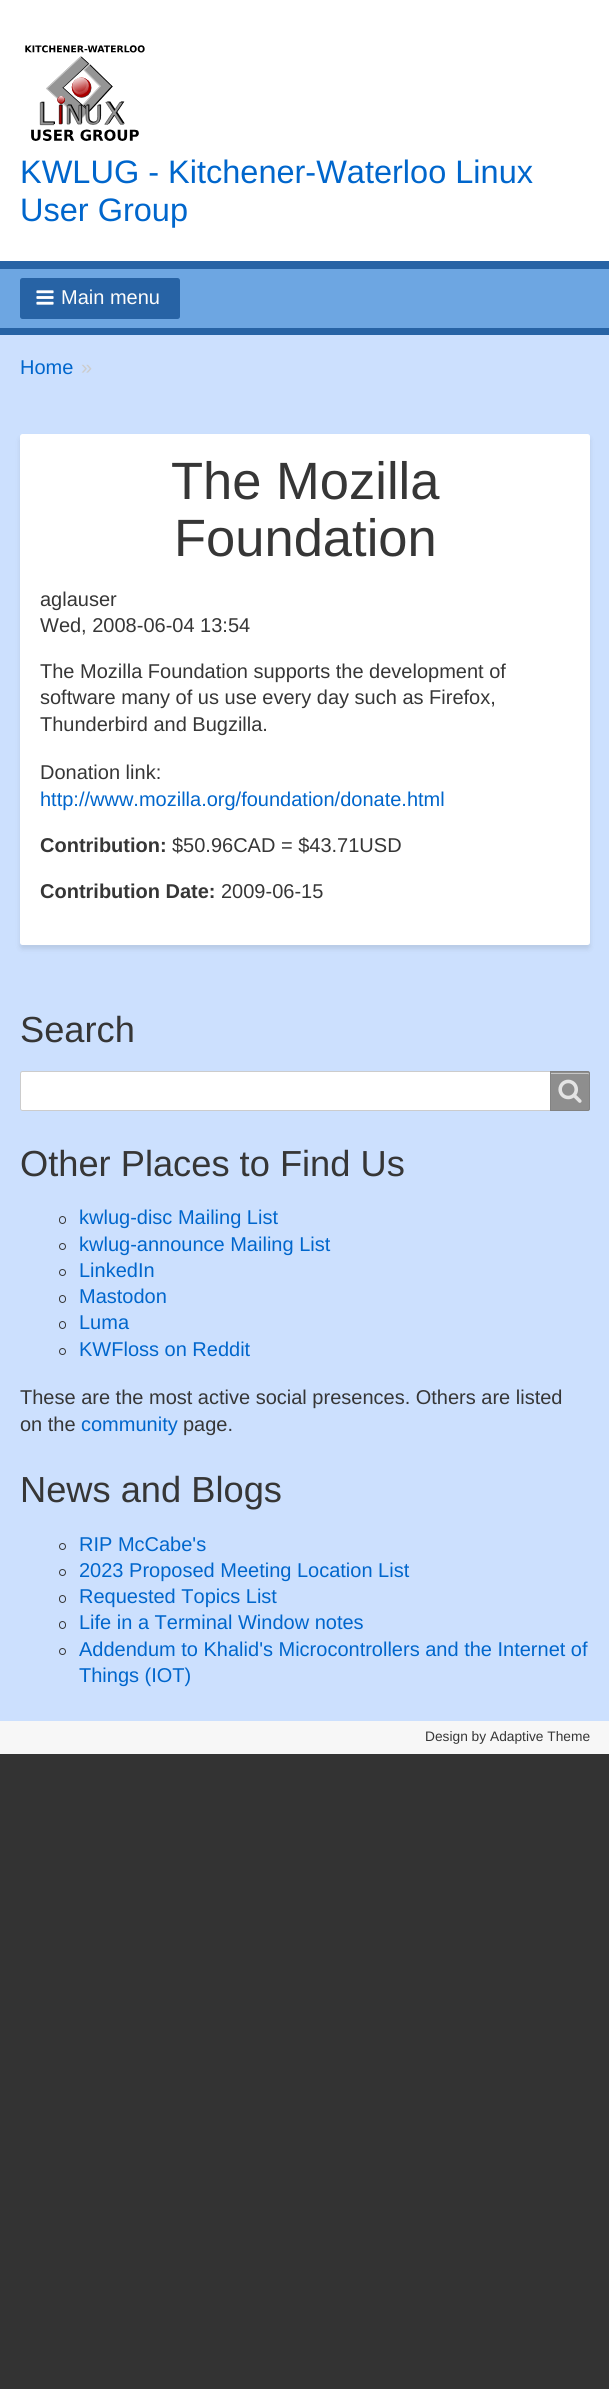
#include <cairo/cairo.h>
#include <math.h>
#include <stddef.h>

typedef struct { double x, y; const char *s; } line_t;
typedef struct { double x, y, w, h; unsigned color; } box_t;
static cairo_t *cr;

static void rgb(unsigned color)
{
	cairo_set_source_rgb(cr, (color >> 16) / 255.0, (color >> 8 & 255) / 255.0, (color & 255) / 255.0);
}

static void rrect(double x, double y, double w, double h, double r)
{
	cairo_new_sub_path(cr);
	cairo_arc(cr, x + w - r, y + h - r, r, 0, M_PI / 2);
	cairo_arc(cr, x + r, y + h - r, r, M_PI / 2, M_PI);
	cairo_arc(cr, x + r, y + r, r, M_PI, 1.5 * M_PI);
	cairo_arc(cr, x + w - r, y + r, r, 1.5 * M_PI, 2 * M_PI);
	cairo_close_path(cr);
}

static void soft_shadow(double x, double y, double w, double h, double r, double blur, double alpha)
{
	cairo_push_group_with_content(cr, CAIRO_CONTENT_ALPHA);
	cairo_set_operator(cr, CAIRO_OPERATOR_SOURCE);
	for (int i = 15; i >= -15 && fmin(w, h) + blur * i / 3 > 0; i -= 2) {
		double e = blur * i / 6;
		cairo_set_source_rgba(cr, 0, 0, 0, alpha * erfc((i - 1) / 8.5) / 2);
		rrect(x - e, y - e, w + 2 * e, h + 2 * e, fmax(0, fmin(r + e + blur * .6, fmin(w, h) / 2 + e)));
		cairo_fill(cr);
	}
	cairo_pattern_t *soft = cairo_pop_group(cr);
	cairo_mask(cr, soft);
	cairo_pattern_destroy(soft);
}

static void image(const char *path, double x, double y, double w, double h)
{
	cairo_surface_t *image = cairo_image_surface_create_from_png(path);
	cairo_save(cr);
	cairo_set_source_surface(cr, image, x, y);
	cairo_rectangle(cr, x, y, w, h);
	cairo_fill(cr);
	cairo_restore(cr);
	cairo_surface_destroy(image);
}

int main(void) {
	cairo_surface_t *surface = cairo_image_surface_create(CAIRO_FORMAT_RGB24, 609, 2389);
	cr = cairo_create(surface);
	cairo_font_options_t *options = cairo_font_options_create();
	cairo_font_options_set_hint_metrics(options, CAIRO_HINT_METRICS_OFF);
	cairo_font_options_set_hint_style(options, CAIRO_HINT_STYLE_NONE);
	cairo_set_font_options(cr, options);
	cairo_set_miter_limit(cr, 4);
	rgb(0x333333);
	cairo_paint(cr);
	rgb(0xf7f7f7);
	cairo_rectangle(cr, 0, 1721, 609, 33);
	cairo_fill(cr);
	rgb(0xffffff);
	cairo_rectangle(cr, 0, 0, 609, 261);
	cairo_fill(cr);
	image("img/1.png", 25, 45, 120, 96);
	{
		static const box_t items[] = {
			{0, 269, 609, 59, 0x6da6e2},
			{0, 261, 609, 8, 0x2763a5},
			{0, 328, 609, 7, 0x2763a5},
		};
		for (size_t i = 0; i < sizeof items / sizeof *items; i++) {
			rgb(items[i].color);
			cairo_rectangle(cr, items[i].x, items[i].y, items[i].w, items[i].h);
			cairo_fill(cr);
		}
	}
	rrect(20, 278, 160, 41, 2.5);
	cairo_fill(cr);
	image("img/2.png", 36, 290, 18, 15);
	rgb(0xcce0fe);
	cairo_rectangle(cr, 0, 335, 609, 1386);
	cairo_fill(cr);
	rgb(0x000000);
	soft_shadow(20, 438, 570, 511, 2.5, 2.5, 0.1);
	rgb(0xffffff);
	rrect(20, 434, 570, 511, 2.5);
	cairo_fill(cr);
	rrect(20.5, 1071.5, 569, 39, 2);
	cairo_fill_preserve(cr);
	rgb(0xcccccc);
	cairo_set_line_width(cr, 1);
	cairo_stroke(cr);
	cairo_set_source_rgba(cr, 0.51, 0.51, 0.51, 0.9);
	cairo_new_path(cr);
	cairo_move_to(cr, 550, 1071);
	cairo_line_to(cr, 587.5, 1071);
	cairo_curve_to(cr, 589, 1071, 590, 1072, 590, 1073.5);
	cairo_line_to(cr, 590, 1108.5);
	cairo_curve_to(cr, 590, 1110, 589, 1111, 587.5, 1111);
	cairo_line_to(cr, 550, 1111);
	cairo_close_path(cr);
	cairo_fill(cr);
	image("img/3.png", 558, 1079, 24, 24);
	rgb(0xc7c7c7);
	cairo_new_path(cr);
	cairo_move_to(cr, 551, 1074);
	cairo_line_to(cr, 588, 1074);
	cairo_curve_to(cr, 588, 1074, 589, 1074, 589, 1075);
	cairo_line_to(cr, 589, 1074);
	cairo_curve_to(cr, 589, 1073.5, 588.5, 1073, 588, 1073);
	cairo_line_to(cr, 551, 1073);
	cairo_close_path(cr);
	cairo_fill(cr);
	cairo_new_path(cr);
	cairo_move_to(cr, 550.5, 1071.5);
	cairo_line_to(cr, 587.5, 1071.5);
	cairo_curve_to(cr, 588.5, 1071.5, 589.5, 1072.5, 589.5, 1073.5);
	cairo_line_to(cr, 589.5, 1108.5);
	cairo_curve_to(cr, 589.5, 1109.5, 588.5, 1110.5, 587.5, 1110.5);
	cairo_line_to(cr, 550.5, 1110.5);
	cairo_close_path(cr);
	cairo_set_source_rgba(cr, 0.51, 0.51, 0.51, 0.9);
	cairo_stroke(cr);
	rrect(59.5, 1216.5, 6, 7, 3);
	rgb(0x363636);
	cairo_stroke(cr);
	cairo_arc(cr, 62.5, 1246.5, 3, 0, 2 * M_PI);
	cairo_stroke(cr);
	cairo_arc(cr, 62.5, 1272.5, 3, 0, 2 * M_PI);
	cairo_stroke(cr);
	rrect(59.5, 1295.5, 6, 7, 3);
	cairo_stroke(cr);
	rrect(59.5, 1321.5, 6, 7, 3);
	cairo_stroke(cr);
	cairo_arc(cr, 62.5, 1351.5, 3, 0, 2 * M_PI);
	cairo_stroke(cr);
	cairo_arc(cr, 62.5, 1546.5, 3, 0, 2 * M_PI);
	cairo_stroke(cr);
	cairo_arc(cr, 62.5, 1572.5, 3, 0, 2 * M_PI);
	cairo_stroke(cr);
	rrect(59.5, 1595.5, 6, 7, 3);
	cairo_stroke(cr);
	rrect(59.5, 1621.5, 6, 7, 3);
	cairo_stroke(cr);
	cairo_arc(cr, 62.5, 1651.5, 3, 0, 2 * M_PI);
	cairo_stroke(cr);
	cairo_select_font_face(cr, "Liberation Sans", CAIRO_FONT_SLANT_NORMAL, CAIRO_FONT_WEIGHT_NORMAL);
	cairo_set_font_size(cr, 32.5);
	rgb(0x0066cc);
	cairo_move_to(cr, 20, 183);
	cairo_show_text(cr, "KWLUG - Kitchener-Waterloo Linux");
	cairo_move_to(cr, 20, 221);
	cairo_show_text(cr, "User Group");
	cairo_set_font_size(cr, 20);
	rgb(0xfcfcfc);
	cairo_move_to(cr, 61, 304);
	cairo_show_text(cr, "Main menu");
	rgb(0x0066cc);
	cairo_move_to(cr, 20, 374);
	cairo_show_text(cr, "Home");
	rgb(0xcccccc);
	cairo_move_to(cr, 81, 374);
	cairo_show_text(cr, "»");
	cairo_set_font_size(cr, 52.5);
	rgb(0x363636);
	cairo_move_to(cr, 171, 499);
	cairo_show_text(cr, "The Mozilla");
	cairo_move_to(cr, 174, 556);
	cairo_show_text(cr, "Foundation");
	cairo_set_font_size(cr, 20);
	{
		static const line_t items[] = {
			{40, 606, "aglauser"},
			{40, 632, "Wed, 2008-06-04 13:54"},
			{40, 678, "The Mozilla Foundation supports the development of"},
			{40, 704, "software many of us use every day such as Firefox,"},
			{40, 731, "Thunderbird and Bugzilla."},
			{40, 779, "Donation link:"},
		};
		for (size_t i = 0; i < sizeof items / sizeof *items; i++) {
			cairo_move_to(cr, items[i].x, items[i].y);
			cairo_show_text(cr, items[i].s);
		}
	}
	rgb(0x0066cc);
	cairo_move_to(cr, 40, 806);
	cairo_show_text(cr, "http://www.mozilla.org/foundation/donate.html");
	cairo_select_font_face(cr, "Liberation Sans", CAIRO_FONT_SLANT_NORMAL, CAIRO_FONT_WEIGHT_BOLD);
	rgb(0x363636);
	cairo_move_to(cr, 40, 852);
	cairo_show_text(cr, "Contribution:");
	cairo_select_font_face(cr, "Liberation Sans", CAIRO_FONT_SLANT_NORMAL, CAIRO_FONT_WEIGHT_NORMAL);
	cairo_move_to(cr, 172, 852);
	cairo_show_text(cr, "$50.96CAD = $43.71USD");
	cairo_select_font_face(cr, "Liberation Sans", CAIRO_FONT_SLANT_NORMAL, CAIRO_FONT_WEIGHT_BOLD);
	cairo_move_to(cr, 40, 898);
	cairo_show_text(cr, "Contribution Date:");
	cairo_select_font_face(cr, "Liberation Sans", CAIRO_FONT_SLANT_NORMAL, CAIRO_FONT_WEIGHT_NORMAL);
	cairo_move_to(cr, 221, 898);
	cairo_show_text(cr, "2009-06-15");
	cairo_set_font_size(cr, 36.25);
	cairo_move_to(cr, 20, 1042);
	cairo_show_text(cr, "Search");
	cairo_move_to(cr, 20, 1176);
	cairo_show_text(cr, "Other Places to Find Us");
	cairo_set_font_size(cr, 20);
	rgb(0x0066cc);
	{
		static const line_t items[] = {
			{79, 1224, "kwlug-disc Mailing List"},
			{79, 1251, "kwlug-announce Mailing List"},
			{79, 1277, "LinkedIn"},
			{79, 1303, "Mastodon"},
			{79, 1329, "Luma"},
			{79, 1356, "KWFloss on Reddit"},
		};
		for (size_t i = 0; i < sizeof items / sizeof *items; i++) {
			cairo_move_to(cr, items[i].x, items[i].y);
			cairo_show_text(cr, items[i].s);
		}
	}
	rgb(0x363636);
	cairo_move_to(cr, 20, 1404);
	cairo_show_text(cr, "These are the most active social presences. Others are listed");
	cairo_move_to(cr, 20, 1431);
	cairo_show_text(cr, "on the");
	rgb(0x0066cc);
	cairo_move_to(cr, 81, 1431);
	cairo_show_text(cr, "community");
	rgb(0x363636);
	cairo_move_to(cr, 183, 1431);
	cairo_show_text(cr, "page.");
	cairo_set_font_size(cr, 36.25);
	cairo_move_to(cr, 20, 1502);
	cairo_show_text(cr, "News and Blogs");
	cairo_set_font_size(cr, 20);
	rgb(0x0066cc);
	{
		static const line_t items[] = {
			{79, 1551, "RIP McCabe's"},
			{79, 1577, "2023 Proposed Meeting Location List"},
			{79, 1603, "Requested Topics List"},
			{79, 1629, "Life in a Terminal Window notes"},
			{79, 1656, "Addendum to Khalid's Microcontrollers and the Internet of"},
			{79, 1682, "Things (IOT)"},
		};
		for (size_t i = 0; i < sizeof items / sizeof *items; i++) {
			cairo_move_to(cr, items[i].x, items[i].y);
			cairo_show_text(cr, items[i].s);
		}
	}
	cairo_set_font_size(cr, 13.75);
	rgb(0x363636);
	cairo_move_to(cr, 425, 1741);
	cairo_show_text(cr, "Design by Adaptive Theme");
	cairo_surface_write_to_png(surface, "page.png");
	cairo_font_options_destroy(options);
	cairo_destroy(cr);
	cairo_surface_destroy(surface);
	return 0;
}
